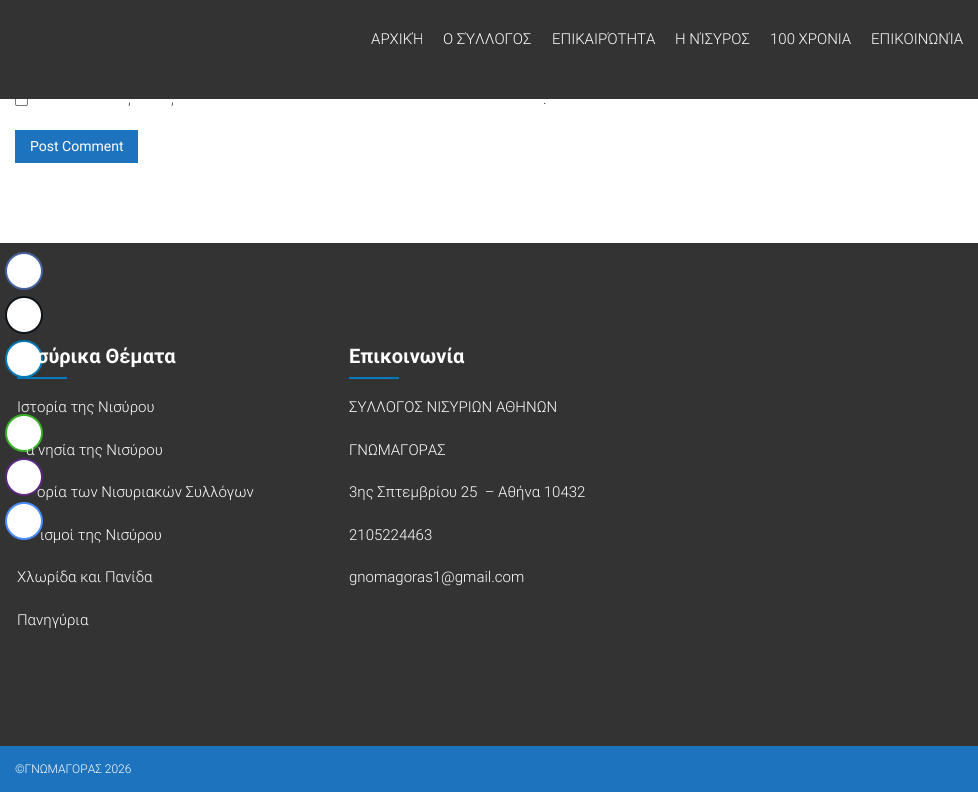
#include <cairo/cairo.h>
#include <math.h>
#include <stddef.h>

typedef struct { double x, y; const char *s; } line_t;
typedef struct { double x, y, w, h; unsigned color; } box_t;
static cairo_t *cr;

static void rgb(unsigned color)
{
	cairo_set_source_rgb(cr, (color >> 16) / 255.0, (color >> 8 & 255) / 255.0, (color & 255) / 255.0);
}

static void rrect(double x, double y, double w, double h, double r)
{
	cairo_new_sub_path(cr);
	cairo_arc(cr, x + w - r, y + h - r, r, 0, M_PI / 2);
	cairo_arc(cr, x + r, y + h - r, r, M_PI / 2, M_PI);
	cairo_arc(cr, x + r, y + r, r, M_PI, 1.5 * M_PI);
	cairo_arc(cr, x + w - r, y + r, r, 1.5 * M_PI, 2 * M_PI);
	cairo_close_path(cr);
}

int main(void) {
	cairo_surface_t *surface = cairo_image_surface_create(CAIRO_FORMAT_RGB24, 978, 792);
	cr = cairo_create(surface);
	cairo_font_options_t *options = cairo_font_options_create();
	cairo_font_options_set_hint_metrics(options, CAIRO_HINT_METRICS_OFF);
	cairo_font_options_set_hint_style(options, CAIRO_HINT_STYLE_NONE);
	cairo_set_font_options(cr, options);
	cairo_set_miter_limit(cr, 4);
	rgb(0xffffff);
	cairo_paint(cr);
	rrect(15.5, 93.5, 12, 12, 1.5);
	rgb(0x767676);
	cairo_set_line_width(cr, 1);
	cairo_stroke(cr);
	{
		static const box_t items[] = {
			{0, 0, 978, 99, 0x333333},
			{15, 130, 123, 33, 0x1e73be},
			{0, 243, 978, 503, 0x333333},
			{17, 377, 50, 2, 0x0079bf},
			{349, 377, 50, 2, 0x0079bf},
			{0, 746, 978, 46, 0x1e73be},
		};
		for (size_t i = 0; i < sizeof items / sizeof *items; i++) {
			rgb(items[i].color);
			cairo_rectangle(cr, items[i].x, items[i].y, items[i].w, items[i].h);
			cairo_fill(cr);
		}
	}
	rgb(0xffffff);
	cairo_arc(cr, 24, 271, 18, 0, 2 * M_PI);
	cairo_fill_preserve(cr);
	rgb(0x43609c);
	cairo_set_line_width(cr, 2);
	cairo_stroke(cr);
	rgb(0xffffff);
	cairo_arc(cr, 24, 315, 18, 0, 2 * M_PI);
	cairo_fill_preserve(cr);
	rgb(0x0f1419);
	cairo_stroke(cr);
	rgb(0xffffff);
	cairo_arc(cr, 24, 359, 18, 0, 2 * M_PI);
	cairo_fill_preserve(cr);
	rgb(0x0077b5);
	cairo_stroke(cr);
	rgb(0xffffff);
	cairo_arc(cr, 24, 433, 18, 0, 2 * M_PI);
	cairo_fill_preserve(cr);
	rgb(0x34af23);
	cairo_stroke(cr);
	rgb(0xffffff);
	cairo_arc(cr, 24, 477, 18, 0, 2 * M_PI);
	cairo_fill_preserve(cr);
	rgb(0x59267c);
	cairo_stroke(cr);
	rgb(0xffffff);
	cairo_arc(cr, 24, 521, 18, 0, 2 * M_PI);
	cairo_fill_preserve(cr);
	rgb(0x468bff);
	cairo_stroke(cr);
	cairo_select_font_face(cr, "Roboto Light", CAIRO_FONT_SLANT_NORMAL, CAIRO_FONT_WEIGHT_NORMAL);
	cairo_set_font_size(cr, 15);
	rgb(0xffffff);
	{
		static const line_t items[] = {
			{371, 44, "ΑΡΧΙΚΉ"},
			{443, 44, "Ο ΣΎΛΛΟΓΟΣ"},
			{552, 44, "ΕΠΙΚΑΙΡΌΤΗΤΑ"},
			{675, 44, "Η ΝΊΣΥΡΟΣ"},
			{770, 44, "100 ΧΡΟΝΙΑ"},
			{871, 44, "ΕΠΙΚΟΙΝΩΝΊΑ"},
		};
		for (size_t i = 0; i < sizeof items / sizeof *items; i++) {
			cairo_move_to(cr, items[i].x, items[i].y);
			cairo_show_text(cr, items[i].s);
		}
	}
	rgb(0x333333);
	{
		static const line_t items[] = {
			{128, 104, ","},
			{171, 104, ","},
			{543, 104, "."},
		};
		for (size_t i = 0; i < sizeof items / sizeof *items; i++) {
			cairo_move_to(cr, items[i].x, items[i].y);
			cairo_show_text(cr, items[i].s);
		}
	}
	cairo_select_font_face(cr, "Roboto", CAIRO_FONT_SLANT_NORMAL, CAIRO_FONT_WEIGHT_NORMAL);
	cairo_set_font_size(cr, 14);
	rgb(0xffffff);
	cairo_move_to(cr, 30, 151);
	cairo_show_text(cr, "Post Comment");
	cairo_select_font_face(cr, "Roboto", CAIRO_FONT_SLANT_NORMAL, CAIRO_FONT_WEIGHT_BOLD);
	cairo_set_font_size(cr, 20);
	cairo_move_to(cr, 37, 363);
	cairo_show_text(cr, "σύρικα Θέματα");
	cairo_select_font_face(cr, "Roboto Light", CAIRO_FONT_SLANT_NORMAL, CAIRO_FONT_WEIGHT_NORMAL);
	cairo_set_font_size(cr, 15);
	{
		static const line_t items[] = {
			{17, 412, "Ιστορία της Νισύρου"},
			{26, 455, "α νησία της Νισύρου"},
			{37, 497, "ορία των Νισυριακών Συλλόγων"},
			{40, 540, "ισμοί της Νισύρου"},
			{17, 582, "Χλωρίδα και Πανίδα"},
			{17, 625, "Πανηγύρια"},
		};
		for (size_t i = 0; i < sizeof items / sizeof *items; i++) {
			cairo_move_to(cr, items[i].x, items[i].y);
			cairo_show_text(cr, items[i].s);
		}
	}
	cairo_select_font_face(cr, "Roboto", CAIRO_FONT_SLANT_NORMAL, CAIRO_FONT_WEIGHT_BOLD);
	cairo_set_font_size(cr, 20);
	cairo_move_to(cr, 349, 363);
	cairo_show_text(cr, "Επικοινωνία");
	cairo_select_font_face(cr, "Roboto Light", CAIRO_FONT_SLANT_NORMAL, CAIRO_FONT_WEIGHT_NORMAL);
	cairo_set_font_size(cr, 15);
	{
		static const line_t items[] = {
			{349, 412, "ΣΥΛΛΟΓΟΣ ΝΙΣΥΡΙΩΝ ΑΘΗΝΩΝ"},
			{349, 455, "ΓΝΩΜΑΓΟΡΑΣ"},
			{349, 497, "3ης Σπτεμβρίου 25  – Αθήνα 10432"},
			{349, 540, "2105224463"},
			{349, 582, "gnomagoras1@gmail.com"},
		};
		for (size_t i = 0; i < sizeof items / sizeof *items; i++) {
			cairo_move_to(cr, items[i].x, items[i].y);
			cairo_show_text(cr, items[i].s);
		}
	}
	cairo_set_font_size(cr, 12);
	cairo_move_to(cr, 15, 773);
	cairo_show_text(cr, "©ΓΝΩΜΑΓΟΡΑΣ 2026");
	cairo_surface_write_to_png(surface, "page.png");
	cairo_font_options_destroy(options);
	cairo_destroy(cr);
	cairo_surface_destroy(surface);
	return 0;
}
